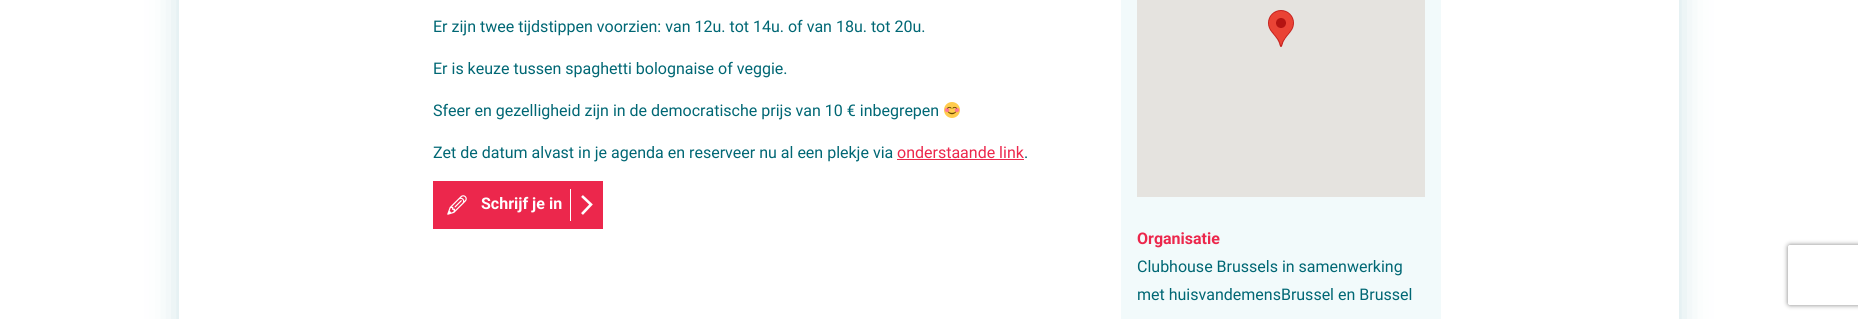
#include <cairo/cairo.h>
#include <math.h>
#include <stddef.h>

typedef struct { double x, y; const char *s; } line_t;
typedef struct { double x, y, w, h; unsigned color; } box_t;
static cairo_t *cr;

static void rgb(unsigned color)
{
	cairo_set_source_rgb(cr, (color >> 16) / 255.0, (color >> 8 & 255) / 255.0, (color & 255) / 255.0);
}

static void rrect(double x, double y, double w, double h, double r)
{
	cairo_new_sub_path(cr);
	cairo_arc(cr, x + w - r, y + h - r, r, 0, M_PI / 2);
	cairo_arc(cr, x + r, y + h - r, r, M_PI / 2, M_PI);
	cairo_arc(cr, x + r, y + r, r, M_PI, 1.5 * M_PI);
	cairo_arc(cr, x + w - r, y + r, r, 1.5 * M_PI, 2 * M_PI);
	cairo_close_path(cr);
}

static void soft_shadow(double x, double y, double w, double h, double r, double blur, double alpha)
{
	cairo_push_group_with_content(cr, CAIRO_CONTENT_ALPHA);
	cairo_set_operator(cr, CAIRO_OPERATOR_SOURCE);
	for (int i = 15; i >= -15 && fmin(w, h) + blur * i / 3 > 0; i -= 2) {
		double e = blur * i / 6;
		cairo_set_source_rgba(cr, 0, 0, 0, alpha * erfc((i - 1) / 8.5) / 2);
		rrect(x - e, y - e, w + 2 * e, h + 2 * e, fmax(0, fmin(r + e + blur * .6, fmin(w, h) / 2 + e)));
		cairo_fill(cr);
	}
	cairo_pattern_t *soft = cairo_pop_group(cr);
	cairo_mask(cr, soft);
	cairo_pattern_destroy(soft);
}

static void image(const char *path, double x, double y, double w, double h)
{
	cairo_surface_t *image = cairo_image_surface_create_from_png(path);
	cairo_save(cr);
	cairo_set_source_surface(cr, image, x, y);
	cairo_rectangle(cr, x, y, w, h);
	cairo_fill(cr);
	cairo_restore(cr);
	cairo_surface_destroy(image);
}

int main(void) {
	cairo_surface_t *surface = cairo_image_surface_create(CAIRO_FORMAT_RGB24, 1858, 319);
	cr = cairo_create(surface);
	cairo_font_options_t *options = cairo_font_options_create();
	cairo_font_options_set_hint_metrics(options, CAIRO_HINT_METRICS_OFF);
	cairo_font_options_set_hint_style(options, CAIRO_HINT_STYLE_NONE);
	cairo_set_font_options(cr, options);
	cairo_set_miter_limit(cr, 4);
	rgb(0xffffff);
	cairo_paint(cr);
	cairo_save(cr);
	cairo_set_fill_rule(cr, CAIRO_FILL_RULE_EVEN_ODD);
	cairo_new_path(cr);
	cairo_move_to(cr, 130, 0);
	cairo_line_to(cr, 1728, 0);
	cairo_line_to(cr, 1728, 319);
	cairo_line_to(cr, 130, 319);
	cairo_close_path(cr);
	cairo_move_to(cr, 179, -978);
	cairo_line_to(cr, 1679, -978);
	cairo_line_to(cr, 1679, 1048);
	cairo_line_to(cr, 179, 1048);
	cairo_close_path(cr);
	cairo_clip(cr);
	rgb(0x017382);
	soft_shadow(179, -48, 1500, 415, 0, 16, 0.2);
	cairo_restore(cr);
	image("img/1.png", 944, 102, 16, 16);
	rgb(0xec274c);
	cairo_rectangle(cr, 897, 159, 127, 1);
	cairo_fill(cr);
	cairo_rectangle(cr, 433, 181, 170, 48);
	cairo_fill(cr);
	image("img/2.png", 447, 195, 20, 20);
	cairo_new_path(cr);
	cairo_move_to(cr, 582, 196);
	cairo_line_to(cr, 591, 204.5);
	cairo_line_to(cr, 582, 214);
	rgb(0xffffff);
	cairo_set_line_width(cr, 2.6);
	cairo_stroke(cr);
	{
		static const box_t items[] = {
			{570, 189, 1, 32, 0xffffff},
			{1121, 0, 320, 319, 0xf2fafb},
			{1137, 0, 288, 197, 0xe5e3df},
		};
		for (size_t i = 0; i < sizeof items / sizeof *items; i++) {
			rgb(items[i].color);
			cairo_rectangle(cr, items[i].x, items[i].y, items[i].w, items[i].h);
			cairo_fill(cr);
		}
	}
	image("img/3.png", 1268, 10, 26, 37);
	cairo_save(cr);
	cairo_set_fill_rule(cr, CAIRO_FILL_RULE_EVEN_ODD);
	cairo_new_path(cr);
	cairo_move_to(cr, 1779, 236);
	cairo_line_to(cr, 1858, 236);
	cairo_line_to(cr, 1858, 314);
	cairo_line_to(cr, 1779, 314);
	cairo_close_path(cr);
	cairo_move_to(cr, 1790, 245);
	cairo_line_to(cr, 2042, 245);
	cairo_curve_to(cr, 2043, 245, 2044, 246, 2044, 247);
	cairo_line_to(cr, 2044, 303);
	cairo_curve_to(cr, 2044, 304, 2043, 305, 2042, 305);
	cairo_line_to(cr, 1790, 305);
	cairo_curve_to(cr, 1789, 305, 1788, 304, 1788, 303);
	cairo_line_to(cr, 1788, 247);
	cairo_curve_to(cr, 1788, 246, 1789, 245, 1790, 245);
	cairo_close_path(cr);
	cairo_clip(cr);
	rgb(0x808080);
	soft_shadow(1788, 245, 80, 60, 2, 2.5, 1);
	cairo_restore(cr);
	cairo_select_font_face(cr, "Roboto", CAIRO_FONT_SLANT_NORMAL, CAIRO_FONT_WEIGHT_NORMAL);
	cairo_set_font_size(cr, 16);
	rgb(0x006774);
	{
		static const line_t items[] = {
			{433, 32, "Er zijn twee tijdstippen voorzien: van 12u. tot 14u. of van 18u. tot 20u."},
			{433, 74, "Er is keuze tussen spaghetti bolognaise of veggie."},
			{433, 116, "Sfeer en gezelligheid zijn in de democratische prijs van 10 € inbegrepen"},
			{433, 158, "Zet de datum alvast in je agenda en reserveer nu al een plekje via"},
		};
		for (size_t i = 0; i < sizeof items / sizeof *items; i++) {
			cairo_move_to(cr, items[i].x, items[i].y);
			cairo_show_text(cr, items[i].s);
		}
	}
	rgb(0xec274c);
	cairo_move_to(cr, 897, 158);
	cairo_show_text(cr, "onderstaande link");
	rgb(0x006774);
	cairo_move_to(cr, 1024, 158);
	cairo_show_text(cr, ".");
	cairo_select_font_face(cr, "Roboto", CAIRO_FONT_SLANT_NORMAL, CAIRO_FONT_WEIGHT_BOLD);
	rgb(0xffffff);
	cairo_move_to(cr, 481, 209);
	cairo_show_text(cr, "Schrijf je in");
	rgb(0xec274c);
	cairo_move_to(cr, 1137, 244);
	cairo_show_text(cr, "Organisatie");
	cairo_select_font_face(cr, "Roboto", CAIRO_FONT_SLANT_NORMAL, CAIRO_FONT_WEIGHT_NORMAL);
	rgb(0x006774);
	cairo_move_to(cr, 1137, 272);
	cairo_show_text(cr, "Clubhouse Brussels in samenwerking");
	cairo_move_to(cr, 1137, 300);
	cairo_show_text(cr, "met huisvandemensBrussel en Brussel");
	cairo_surface_write_to_png(surface, "page.png");
	cairo_font_options_destroy(options);
	cairo_destroy(cr);
	cairo_surface_destroy(surface);
	return 0;
}
